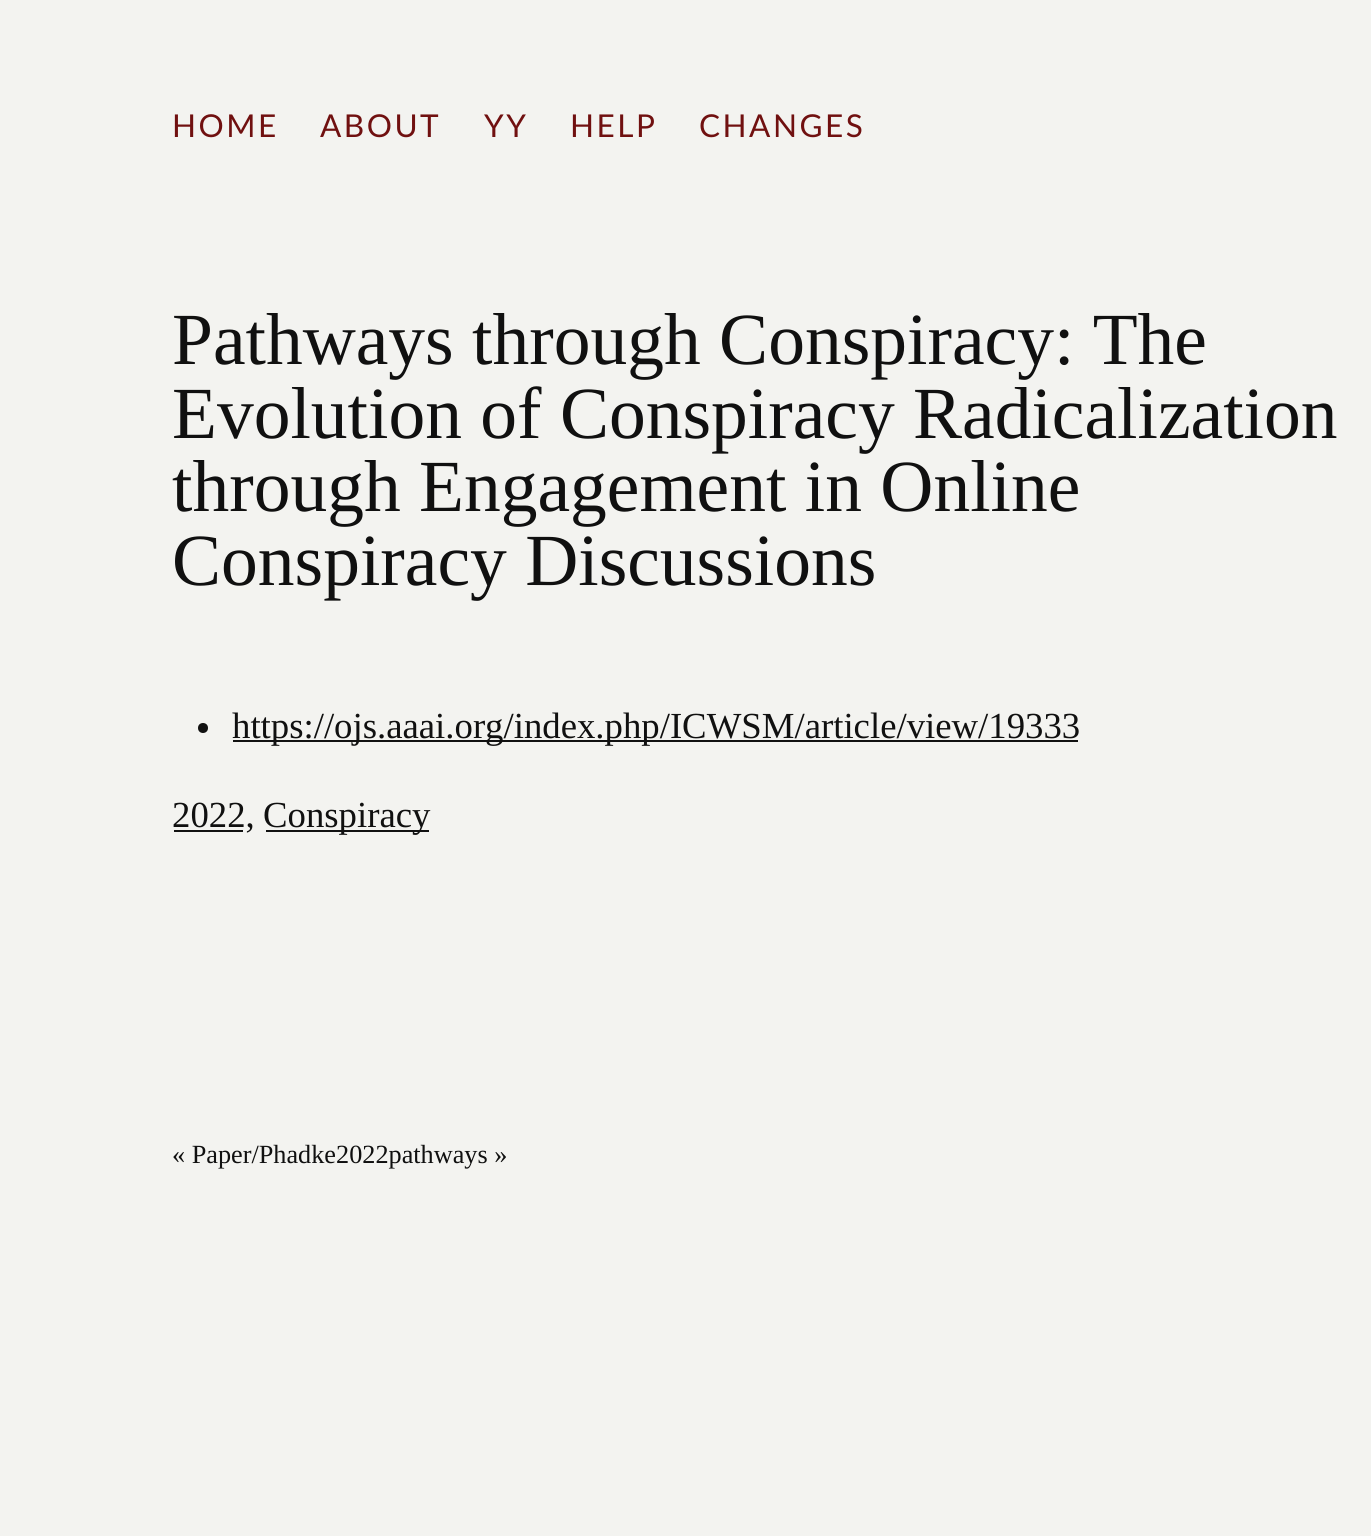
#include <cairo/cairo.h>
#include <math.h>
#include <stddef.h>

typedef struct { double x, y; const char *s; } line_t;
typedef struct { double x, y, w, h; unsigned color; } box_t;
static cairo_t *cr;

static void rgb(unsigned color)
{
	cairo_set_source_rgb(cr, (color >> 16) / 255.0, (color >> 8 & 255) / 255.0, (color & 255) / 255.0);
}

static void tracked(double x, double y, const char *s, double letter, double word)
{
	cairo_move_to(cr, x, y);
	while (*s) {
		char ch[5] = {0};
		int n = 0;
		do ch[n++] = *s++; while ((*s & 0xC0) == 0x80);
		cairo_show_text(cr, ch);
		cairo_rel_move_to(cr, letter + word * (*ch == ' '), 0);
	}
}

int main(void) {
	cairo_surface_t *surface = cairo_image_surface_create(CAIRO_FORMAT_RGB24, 1371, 1536);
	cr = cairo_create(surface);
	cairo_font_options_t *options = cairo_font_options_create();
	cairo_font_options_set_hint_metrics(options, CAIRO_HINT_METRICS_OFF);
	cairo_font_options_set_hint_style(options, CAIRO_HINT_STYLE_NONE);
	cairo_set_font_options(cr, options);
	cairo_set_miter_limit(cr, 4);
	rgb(0xf3f3f0);
	cairo_paint(cr);
	rgb(0x111111);
	cairo_arc(cr, 203, 728, 5, 0, 2 * M_PI);
	cairo_fill(cr);
	{
		static const box_t items[] = {
			{231, 740, 849, 2, 0x111111},
			{1078, 740, 2, 2, 0xf3f3f0},
			{231, 740, 2, 2, 0xf3f3f0},
			{172, 830, 73, 2, 0x111111},
			{243, 830, 2, 2, 0xf3f3f0},
			{172, 830, 2, 2, 0xf3f3f0},
			{264, 830, 167, 2, 0x111111},
			{429, 830, 2, 2, 0xf3f3f0},
			{264, 830, 2, 2, 0xf3f3f0},
		};
		for (size_t i = 0; i < sizeof items / sizeof *items; i++) {
			rgb(items[i].color);
			cairo_rectangle(cr, items[i].x, items[i].y, items[i].w, items[i].h);
			cairo_fill(cr);
		}
	}
	cairo_select_font_face(cr, "Lato", CAIRO_FONT_SLANT_NORMAL, CAIRO_FONT_WEIGHT_NORMAL);
	cairo_set_font_size(cr, 31.5);
	rgb(0x701010);
	{
		static const line_t items[] = {
			{172, 137, "HOME"},
			{320, 137, "ABOUT"},
			{484, 137, "YY"},
			{570, 137, "HELP"},
			{699, 137, "CHANGES"},
		};
		for (size_t i = 0; i < sizeof items / sizeof *items; i++) {
			tracked(items[i].x, items[i].y, items[i].s, 2.5, 0);
		}
	}
	cairo_select_font_face(cr, "Liberation Serif", CAIRO_FONT_SLANT_NORMAL, CAIRO_FONT_WEIGHT_NORMAL);
	cairo_set_font_size(cr, 73.5);
	rgb(0x101010);
	{
		static const line_t items[] = {
			{172, 364, "Pathways through Conspiracy: The"},
			{172, 438, "Evolution of Conspiracy Radicalization"},
			{172, 511, "through Engagement in Online"},
			{172, 585, "Conspiracy Discussions"},
		};
		for (size_t i = 0; i < sizeof items / sizeof *items; i++) {
			cairo_move_to(cr, items[i].x, items[i].y);
			cairo_show_text(cr, items[i].s);
		}
	}
	cairo_set_font_size(cr, 36.75);
	{
		static const line_t items[] = {
			{232, 738, "https://ojs.aaai.org/index.php/ICWSM/article/view/19333"},
			{172, 827, "2022,"},
			{263, 827, "Conspiracy"},
		};
		for (size_t i = 0; i < sizeof items / sizeof *items; i++) {
			cairo_move_to(cr, items[i].x, items[i].y);
			cairo_show_text(cr, items[i].s);
		}
	}
	cairo_set_font_size(cr, 26.25);
	cairo_move_to(cr, 172, 1163);
	cairo_show_text(cr, "« Paper/Phadke2022pathways »");
	cairo_surface_write_to_png(surface, "page.png");
	cairo_font_options_destroy(options);
	cairo_destroy(cr);
	cairo_surface_destroy(surface);
	return 0;
}
